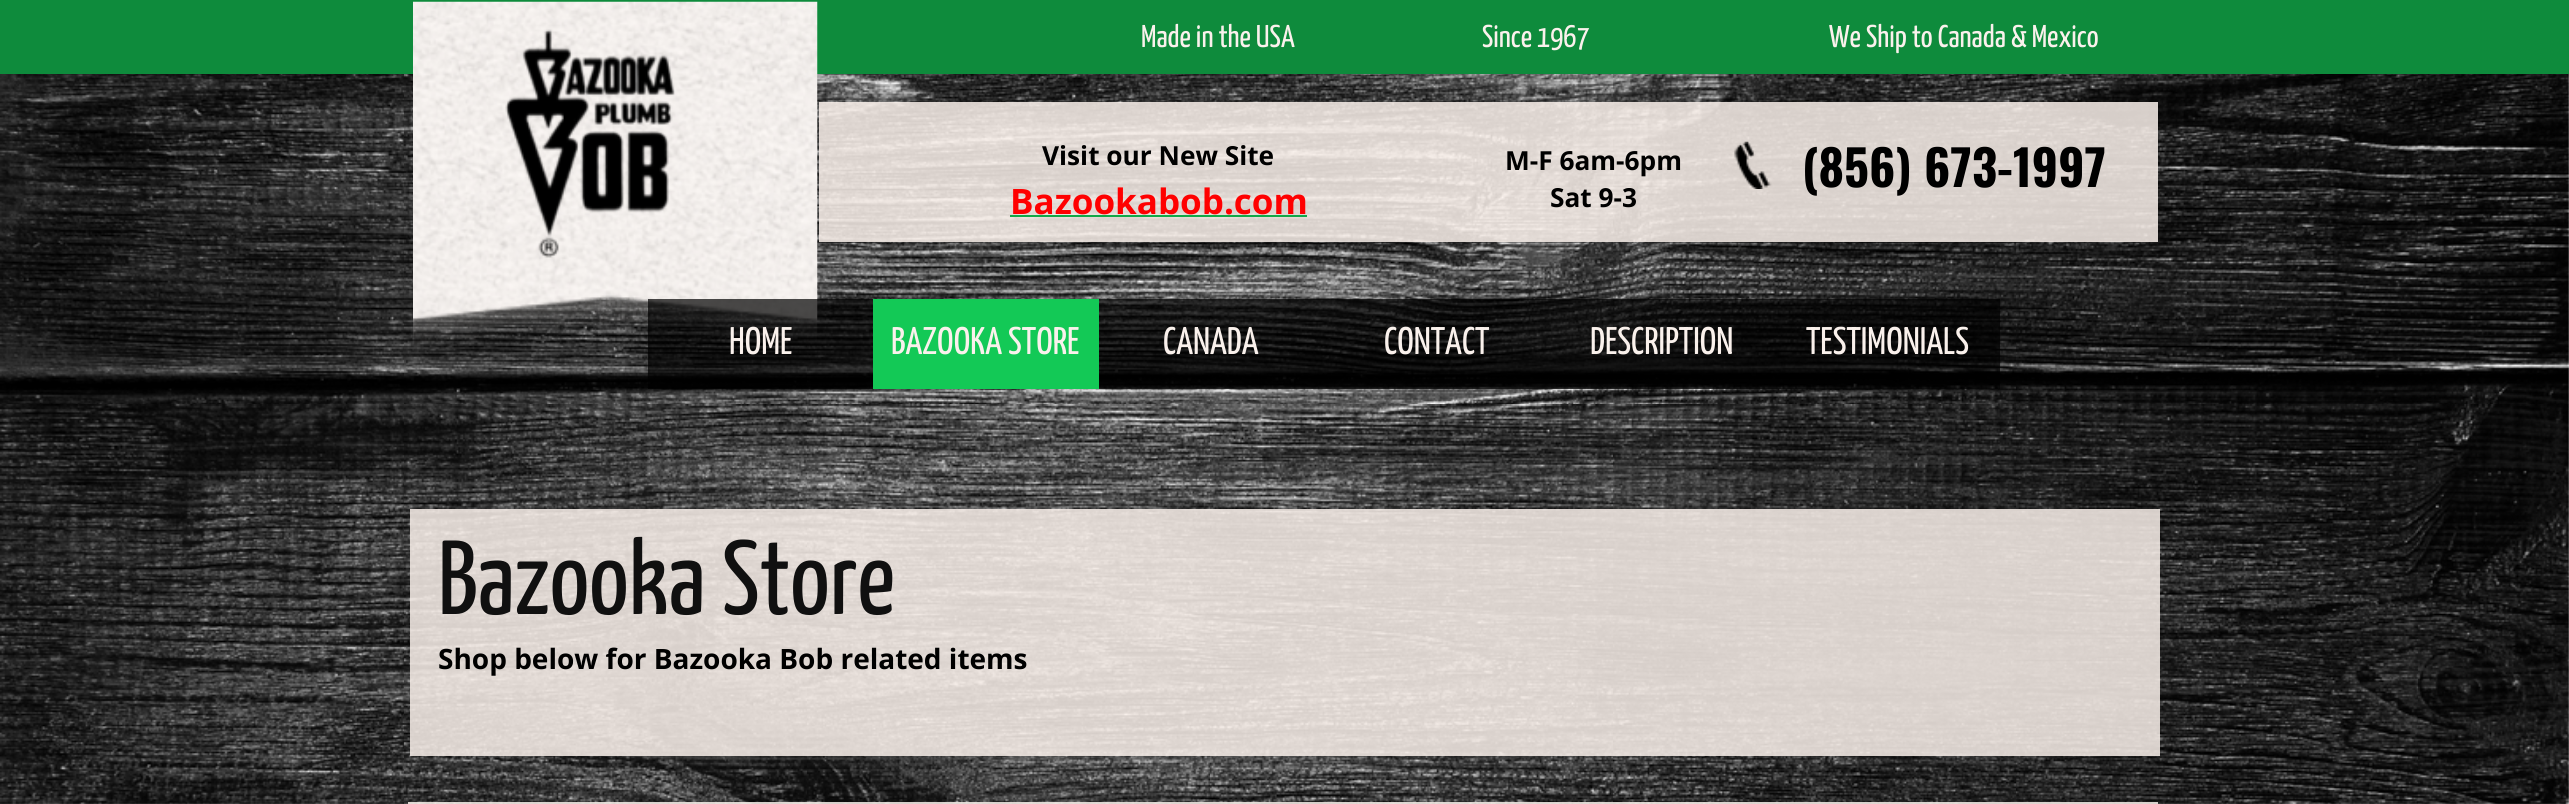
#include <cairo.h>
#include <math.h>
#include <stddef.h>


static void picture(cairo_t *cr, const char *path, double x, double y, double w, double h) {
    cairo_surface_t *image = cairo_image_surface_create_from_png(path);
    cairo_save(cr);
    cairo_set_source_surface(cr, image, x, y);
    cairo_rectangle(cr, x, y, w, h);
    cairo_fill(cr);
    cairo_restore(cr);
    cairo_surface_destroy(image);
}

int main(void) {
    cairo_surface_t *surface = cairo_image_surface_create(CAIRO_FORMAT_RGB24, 2569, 804);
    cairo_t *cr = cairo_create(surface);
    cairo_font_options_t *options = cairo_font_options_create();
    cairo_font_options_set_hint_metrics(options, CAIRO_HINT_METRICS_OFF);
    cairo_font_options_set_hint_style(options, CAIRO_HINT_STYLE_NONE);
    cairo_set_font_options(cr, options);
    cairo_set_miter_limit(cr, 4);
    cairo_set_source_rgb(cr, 1, 1, 1);
    cairo_paint(cr);
    picture(cr, "img1.png", 0, 74, 2569, 730);
    cairo_set_source_rgb(cr, 0.055, 0.545, 0.235);
    cairo_rectangle(cr, 0, 0, 2569, 74);
    cairo_fill(cr);
    picture(cr, "img2.png", 413, 1, 405, 343);
    cairo_select_font_face(cr, "Yanone Kaffeesatz ExtraLight", CAIRO_FONT_SLANT_NORMAL, CAIRO_FONT_WEIGHT_NORMAL);
    cairo_set_font_size(cr, 31.5);
    cairo_set_source_rgb(cr, 0.98, 0.945, 0.922);
    cairo_move_to(cr, 1141, 47);
    cairo_show_text(cr, "Made in the USA");
    cairo_move_to(cr, 1482, 47);
    cairo_show_text(cr, "Since 1967");
    cairo_move_to(cr, 1829, 47);
    cairo_show_text(cr, "We Ship to Canada & Mexico");
    picture(cr, "img3.png", 505, 29, 170, 229);
    cairo_set_source_rgba(cr, 0.98, 0.945, 0.922, 0.85);
    cairo_rectangle(cr, 819, 102, 1339, 140);
    cairo_fill(cr);
    cairo_select_font_face(cr, "Open Sans", CAIRO_FONT_SLANT_NORMAL, CAIRO_FONT_WEIGHT_BOLD);
    cairo_set_font_size(cr, 26.25);
    cairo_set_source_rgb(cr, 0, 0, 0);
    cairo_move_to(cr, 1042, 165);
    cairo_show_text(cr, "Visit our New Site");
    cairo_set_font_size(cr, 35);
    cairo_set_source_rgb(cr, 1, 0, 0);
    cairo_move_to(cr, 1010, 214);
    cairo_show_text(cr, "Bazookabob.com");
    cairo_set_source_rgb(cr, 0.067, 0.659, 0.282);
    cairo_rectangle(cr, 1010, 215, 297, 2);
    cairo_fill(cr);
    cairo_set_font_size(cr, 26.25);
    cairo_set_source_rgb(cr, 0, 0, 0);
    cairo_move_to(cr, 1505, 170);
    cairo_show_text(cr, "M-F 6am-6pm");
    cairo_move_to(cr, 1550, 207);
    cairo_show_text(cr, "Sat 9-3");
    picture(cr, "img4.png", 1734, 141, 38, 48);
    cairo_select_font_face(cr, "Oswald", CAIRO_FONT_SLANT_NORMAL, CAIRO_FONT_WEIGHT_BOLD);
    cairo_set_font_size(cr, 49);
    cairo_move_to(cr, 1802, 187);
    cairo_show_text(cr, "(856) 673-1997");
    cairo_set_source_rgba(cr, 0, 0, 0, 0.7);
    cairo_rectangle(cr, 648, 299, 1352, 90);
    cairo_fill(cr);
    cairo_select_font_face(cr, "Yanone Kaffeesatz ExtraLight", CAIRO_FONT_SLANT_NORMAL, CAIRO_FONT_WEIGHT_NORMAL);
    cairo_set_font_size(cr, 38.5);
    cairo_set_source_rgb(cr, 0.98, 0.945, 0.922);
    cairo_move_to(cr, 729, 354);
    cairo_show_text(cr, "HOME");
    cairo_set_source_rgb(cr, 0.078, 0.788, 0.337);
    cairo_rectangle(cr, 873, 299, 226, 90);
    cairo_fill(cr);
    cairo_set_source_rgb(cr, 0.98, 0.945, 0.922);
    cairo_move_to(cr, 891, 354);
    cairo_show_text(cr, "BAZOOKA STORE");
    cairo_move_to(cr, 1163, 354);
    cairo_show_text(cr, "CANADA");
    cairo_move_to(cr, 1384, 354);
    cairo_show_text(cr, "CONTACT");
    cairo_move_to(cr, 1590, 354);
    cairo_show_text(cr, "DESCRIPTION");
    cairo_move_to(cr, 1806, 354);
    cairo_show_text(cr, "TESTIMONIALS");
    cairo_set_source_rgba(cr, 0.98, 0.945, 0.922, 0.85);
    cairo_rectangle(cr, 410, 509, 1750, 247);
    cairo_fill(cr);
    cairo_set_font_size(cr, 105);
    cairo_set_source_rgb(cr, 0.063, 0.063, 0.063);
    cairo_move_to(cr, 438, 614);
    cairo_show_text(cr, "Bazooka Store");
    cairo_select_font_face(cr, "Open Sans", CAIRO_FONT_SLANT_NORMAL, CAIRO_FONT_WEIGHT_BOLD);
    cairo_set_font_size(cr, 28);
    cairo_set_source_rgb(cr, 0, 0, 0);
    cairo_move_to(cr, 438, 669);
    cairo_show_text(cr, "Shop below for Bazooka Bob related items");
    cairo_set_source_rgba(cr, 0.98, 0.945, 0.922, 0.85);
    cairo_rectangle(cr, 408, 802, 1750, 2);
    cairo_fill(cr);
    cairo_surface_write_to_png(surface, "page.png");
    cairo_font_options_destroy(options);
    cairo_destroy(cr);
    cairo_surface_destroy(surface);
    return 0;
}
